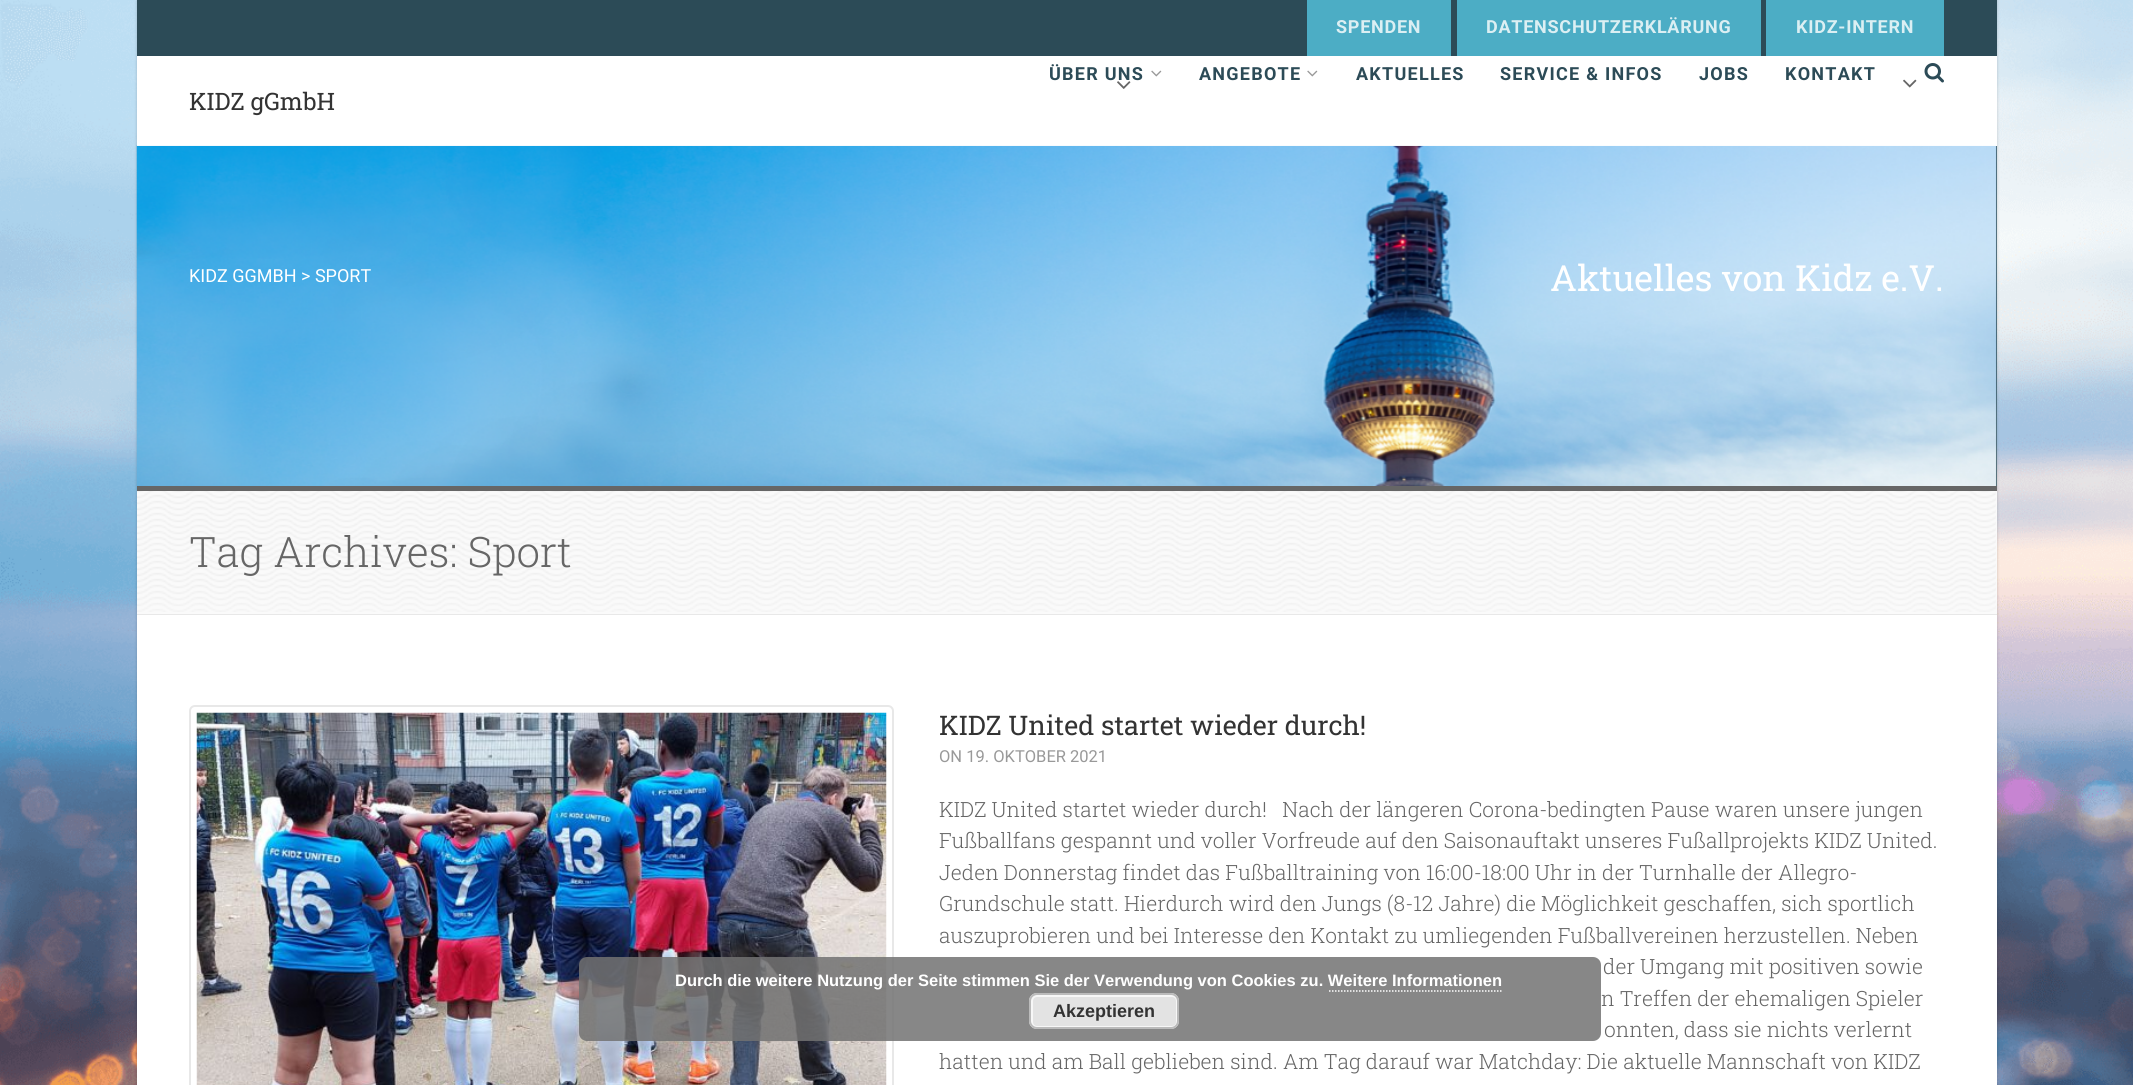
#include <cairo.h>
#include <math.h>
#include <stddef.h>


static void spaced_text(cairo_t *cr, double x, double y, const char *s, double letter, double word) {
    cairo_move_to(cr, x, y);
    while (*s) {
        char ch[5] = {0};
        int n = 0;
        do ch[n++] = *s++; while ((*s & 0xC0) == 0x80);
        cairo_show_text(cr, ch);
        cairo_rel_move_to(cr, letter + word * (*ch == ' '), 0);
    }
}

static void round_rect(cairo_t *cr, double x, double y, double w, double h, double r) {
    cairo_new_sub_path(cr);
    cairo_arc(cr, x + w - r, y + h - r, r, 0, M_PI / 2);
    cairo_arc(cr, x + r, y + h - r, r, M_PI / 2, M_PI);
    cairo_arc(cr, x + r, y + r, r, M_PI, 1.5 * M_PI);
    cairo_arc(cr, x + w - r, y + r, r, 1.5 * M_PI, 2 * M_PI);
    cairo_close_path(cr);
}

static void shadow(cairo_t *cr, double x, double y, double w, double h, double r, double blur, double alpha) {
    cairo_push_group_with_content(cr, CAIRO_CONTENT_ALPHA);
    cairo_set_operator(cr, CAIRO_OPERATOR_SOURCE);
    for (int i = 15; i >= -15 && fmin(w, h) + blur * i / 3 > 0; i -= 2) {
        double e = blur * i / 6;
        cairo_set_source_rgba(cr, 0, 0, 0, alpha * erfc((i - 1) / 8.5) / 2);
        round_rect(cr, x - e, y - e, w + 2 * e, h + 2 * e, fmax(0, fmin(r + e + blur * .6, fmin(w, h) / 2 + e)));
        cairo_fill(cr);
    }
    cairo_pattern_t *soft = cairo_pop_group(cr);
    cairo_mask(cr, soft);
    cairo_pattern_destroy(soft);
}

static void picture(cairo_t *cr, const char *path, double x, double y, double w, double h) {
    cairo_surface_t *image = cairo_image_surface_create_from_png(path);
    cairo_save(cr);
    cairo_set_source_surface(cr, image, x, y);
    cairo_rectangle(cr, x, y, w, h);
    cairo_fill(cr);
    cairo_restore(cr);
    cairo_surface_destroy(image);
}

int main(void) {
    cairo_surface_t *surface = cairo_image_surface_create(CAIRO_FORMAT_RGB24, 2133, 1085);
    cairo_t *cr = cairo_create(surface);
    cairo_font_options_t *options = cairo_font_options_create();
    cairo_font_options_set_hint_metrics(options, CAIRO_HINT_METRICS_OFF);
    cairo_font_options_set_hint_style(options, CAIRO_HINT_STYLE_NONE);
    cairo_set_font_options(cr, options);
    cairo_set_miter_limit(cr, 4);
    cairo_set_source_rgb(cr, 1, 1, 1);
    cairo_paint(cr);
    picture(cr, "img1.png", 0, 0, 2133, 1085);
    cairo_set_source_rgb(cr, 0, 0, 0);
    shadow(cr, 137, 0, 1860, 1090, 0, 1.5, 0.2);
    cairo_set_source_rgb(cr, 1, 1, 1);
    cairo_rectangle(cr, 137, 56, 1860, 90);
    cairo_fill(cr);
    cairo_set_source_rgb(cr, 0.173, 0.294, 0.341);
    cairo_rectangle(cr, 137, 0, 1860, 56);
    cairo_fill(cr);
    cairo_set_source_rgb(cr, 0.298, 0.678, 0.773);
    cairo_rectangle(cr, 1307, 0, 144, 56);
    cairo_fill(cr);
    cairo_select_font_face(cr, "Roboto", CAIRO_FONT_SLANT_NORMAL, CAIRO_FONT_WEIGHT_BOLD);
    cairo_set_font_size(cr, 18);
    cairo_set_source_rgb(cr, 0.859, 0.937, 0.953);
    spaced_text(cr, 1336, 33, "SPENDEN", 0.75, 0);
    cairo_set_source_rgb(cr, 0.298, 0.678, 0.773);
    cairo_rectangle(cr, 1457, 0, 304, 56);
    cairo_fill(cr);
    cairo_set_source_rgb(cr, 0.859, 0.937, 0.953);
    spaced_text(cr, 1486, 33, "DATENSCHUTZERKLÄRUNG", 0.75, 0);
    cairo_set_source_rgb(cr, 0.298, 0.678, 0.773);
    cairo_rectangle(cr, 1766, 0, 178, 56);
    cairo_fill(cr);
    cairo_set_source_rgb(cr, 0.859, 0.937, 0.953);
    spaced_text(cr, 1796, 33, "KIDZ-INTERN", 0.75, 0);
    cairo_set_source_rgb(cr, 0.173, 0.294, 0.341);
    cairo_rectangle(cr, 137, 146, 1860, 340);
    cairo_fill(cr);
    picture(cr, "img6.png", 136, 145, 1861, 346);
    cairo_set_source_rgba(cr, 1, 1, 1, 0.9);
    cairo_rectangle(cr, 137, 145, 1860, 1);
    cairo_fill(cr);
    cairo_set_source_rgb(cr, 0.173, 0.294, 0.341);
    spaced_text(cr, 1049, 80, "ÜBER UNS", 1.25, 0);
    picture(cr, "img2.png", 1151, 70, 11, 7);
    picture(cr, "img3.png", 1117, 81, 14, 8);
    spaced_text(cr, 1199, 80, "ANGEBOTE", 1.25, 0);
    picture(cr, "img2.png", 1307, 70, 11, 7);
    picture(cr, "img4.png", 1903, 79, 14, 9);
    spaced_text(cr, 1356, 80, "AKTUELLES", 1.25, 0);
    spaced_text(cr, 1500, 80, "SERVICE & INFOS", 1.25, 0);
    spaced_text(cr, 1699, 80, "JOBS", 1.25, 0);
    spaced_text(cr, 1785, 80, "KONTAKT", 1.25, 0);
    picture(cr, "img5.png", 1924, 63, 20, 20);
    cairo_select_font_face(cr, "Roboto Slab", CAIRO_FONT_SLANT_NORMAL, CAIRO_FONT_WEIGHT_NORMAL);
    cairo_set_font_size(cr, 24);
    cairo_set_source_rgb(cr, 0.2, 0.2, 0.2);
    cairo_move_to(cr, 189, 110);
    cairo_show_text(cr, "KIDZ gGmbH");
    cairo_set_source_rgb(cr, 0.4, 0.4, 0.4);
    cairo_rectangle(cr, 137, 486, 1860, 5);
    cairo_fill(cr);
    cairo_select_font_face(cr, "Roboto", CAIRO_FONT_SLANT_NORMAL, CAIRO_FONT_WEIGHT_NORMAL);
    cairo_set_font_size(cr, 18);
    cairo_set_source_rgb(cr, 1, 1, 1);
    cairo_move_to(cr, 189, 282);
    cairo_show_text(cr, "KIDZ GGMBH > SPORT");
    cairo_select_font_face(cr, "Roboto Slab", CAIRO_FONT_SLANT_NORMAL, CAIRO_FONT_WEIGHT_NORMAL);
    cairo_set_font_size(cr, 36);
    cairo_move_to(cr, 1550, 291);
    cairo_show_text(cr, "Aktuelles von Kidz e.V.");
    cairo_set_source_rgb(cr, 0.98, 0.98, 0.98);
    cairo_rectangle(cr, 137, 491, 1860, 123);
    cairo_fill(cr);
    picture(cr, "img7.png", 137, 491, 1859, 121);
    cairo_set_source_rgb(cr, 0.91, 0.91, 0.91);
    cairo_rectangle(cr, 137, 614, 1860, 1);
    cairo_fill(cr);
    cairo_select_font_face(cr, "Roboto Slab Light", CAIRO_FONT_SLANT_NORMAL, CAIRO_FONT_WEIGHT_NORMAL);
    cairo_set_font_size(cr, 42);
    cairo_set_source_rgb(cr, 0.4, 0.4, 0.4);
    cairo_move_to(cr, 189, 567);
    cairo_show_text(cr, "Tag Archives: Sport");
    cairo_set_source_rgb(cr, 1, 1, 1);
    cairo_rectangle(cr, 137, 615, 1860, 470);
    cairo_fill(cr);
    round_rect(cr, 190, 706, 703, 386, 5);
    cairo_set_source_rgb(cr, 0.91, 0.91, 0.91);
    cairo_stroke(cr);
    picture(cr, "img8.png", 196, 712, 691, 373);
    cairo_select_font_face(cr, "Roboto Slab", CAIRO_FONT_SLANT_NORMAL, CAIRO_FONT_WEIGHT_NORMAL);
    cairo_set_font_size(cr, 27);
    cairo_set_source_rgb(cr, 0.2, 0.2, 0.2);
    cairo_move_to(cr, 939, 735);
    cairo_show_text(cr, "KIDZ United startet wieder durch!");
    cairo_select_font_face(cr, "Roboto", CAIRO_FONT_SLANT_NORMAL, CAIRO_FONT_WEIGHT_NORMAL);
    cairo_set_font_size(cr, 16.5);
    cairo_set_source_rgb(cr, 0.6, 0.6, 0.6);
    cairo_move_to(cr, 939, 762);
    cairo_show_text(cr, "ON 19. OKTOBER 2021");
    cairo_select_font_face(cr, "Roboto Slab Light", CAIRO_FONT_SLANT_NORMAL, CAIRO_FONT_WEIGHT_NORMAL);
    cairo_set_font_size(cr, 21);
    cairo_set_source_rgb(cr, 0.4, 0.4, 0.4);
    cairo_move_to(cr, 939, 817);
    cairo_show_text(cr, "KIDZ United startet wieder durch!   Nach der längeren Corona-bedingten Pause waren unsere jungen");
    cairo_move_to(cr, 939, 848);
    cairo_show_text(cr, "Fußballfans gespannt und voller Vorfreude auf den Saisonauftakt unseres Fußallprojekts KIDZ United.");
    cairo_move_to(cr, 939, 880);
    cairo_show_text(cr, "Jeden Donnerstag findet das Fußballtraining von 16:00-18:00 Uhr in der Turnhalle der Allegro-");
    cairo_move_to(cr, 939, 911);
    cairo_show_text(cr, "Grundschule statt. Hierdurch wird den Jungs (8-12 Jahre) die Möglichkeit geschaffen, sich sportlich");
    cairo_move_to(cr, 939, 943);
    cairo_show_text(cr, "auszuprobieren und bei Interesse den Kontakt zu umliegenden Fußballvereinen herzustellen. Neben");
    cairo_move_to(cr, 1603, 974);
    cairo_show_text(cr, "der Umgang mit positiven sowie");
    cairo_move_to(cr, 1601, 1006);
    cairo_show_text(cr, "n Treffen der ehemaligen Spieler");
    cairo_move_to(cr, 1604, 1037);
    cairo_show_text(cr, "onnten, dass sie nichts verlernt");
    cairo_move_to(cr, 939, 1069);
    cairo_show_text(cr, "hatten und am Ball geblieben sind. Am Tag darauf war Matchday: Die aktuelle Mannschaft von KIDZ");
    cairo_set_source_rgba(cr, 0.447, 0.447, 0.447, 0.85);
    round_rect(cr, 579, 957, 1022, 84, 8);
    cairo_fill(cr);
    cairo_select_font_face(cr, "Liberation Sans", CAIRO_FONT_SLANT_NORMAL, CAIRO_FONT_WEIGHT_BOLD);
    cairo_set_font_size(cr, 16.5);
    cairo_set_source_rgb(cr, 1, 1, 1);
    cairo_move_to(cr, 675, 986);
    cairo_show_text(cr, "Durch die weitere Nutzung der Seite stimmen Sie der Verwendung von Cookies zu. Weitere Informationen");
    cairo_new_path(cr);
    cairo_move_to(cr, 1329, 991);
    cairo_line_to(cr, 1503, 991);
    cairo_set_line_width(cr, 1.5);
    cairo_set_dash(cr, (double[]){1.5, 1.5}, 2, 0);
    cairo_stroke(cr);
    cairo_set_source_rgb(cr, 0.89, 0.89, 0.89);
    round_rect(cr, 1029, 993, 150, 36, 8);
    cairo_fill(cr);
    round_rect(cr, 1032, 996, 145, 31, 5);
    cairo_set_source_rgb(cr, 0.965, 0.965, 0.965);
    cairo_set_line_width(cr, 2);
    cairo_set_dash(cr, NULL, 0, 0);
    cairo_stroke(cr);
    round_rect(cr, 1030, 994, 148, 34, 7);
    cairo_set_source_rgb(cr, 0.733, 0.733, 0.733);
    cairo_stroke(cr);
    cairo_set_font_size(cr, 18);
    cairo_set_source_rgb(cr, 0.2, 0.2, 0.2);
    cairo_move_to(cr, 1053, 1017);
    cairo_show_text(cr, "Akzeptieren");
    cairo_surface_write_to_png(surface, "page.png");
    cairo_font_options_destroy(options);
    cairo_destroy(cr);
    cairo_surface_destroy(surface);
    return 0;
}
